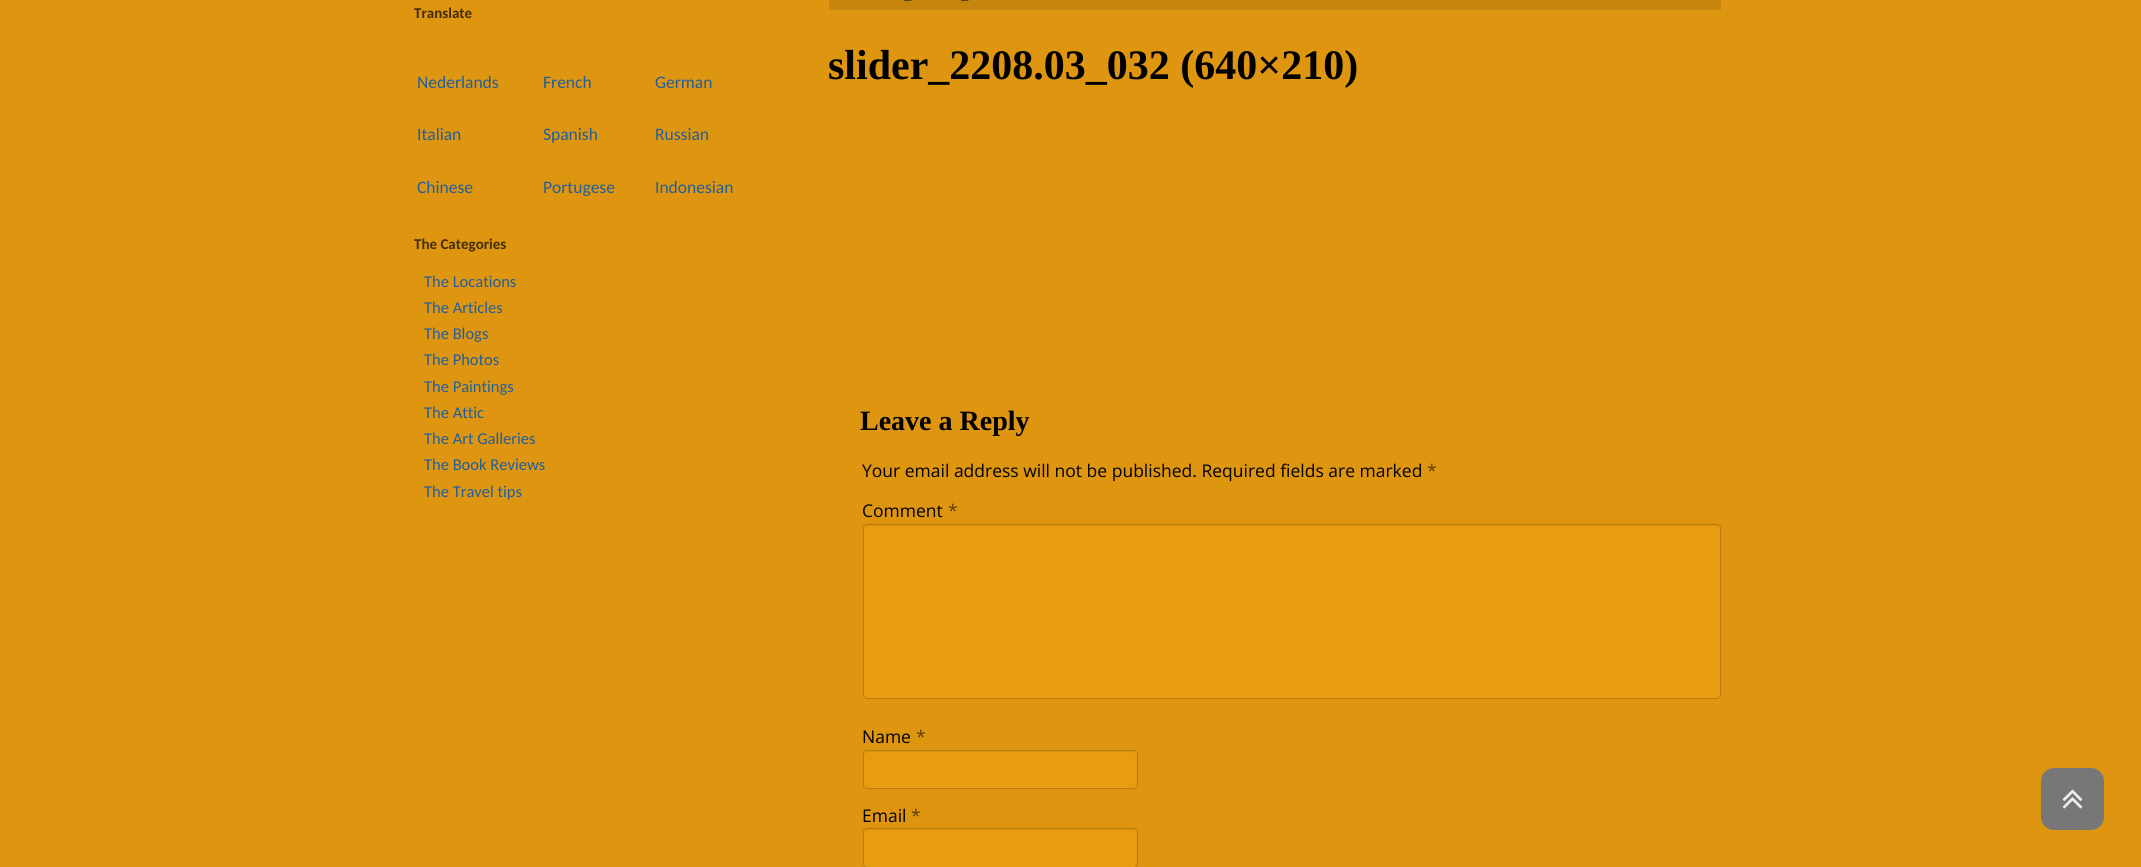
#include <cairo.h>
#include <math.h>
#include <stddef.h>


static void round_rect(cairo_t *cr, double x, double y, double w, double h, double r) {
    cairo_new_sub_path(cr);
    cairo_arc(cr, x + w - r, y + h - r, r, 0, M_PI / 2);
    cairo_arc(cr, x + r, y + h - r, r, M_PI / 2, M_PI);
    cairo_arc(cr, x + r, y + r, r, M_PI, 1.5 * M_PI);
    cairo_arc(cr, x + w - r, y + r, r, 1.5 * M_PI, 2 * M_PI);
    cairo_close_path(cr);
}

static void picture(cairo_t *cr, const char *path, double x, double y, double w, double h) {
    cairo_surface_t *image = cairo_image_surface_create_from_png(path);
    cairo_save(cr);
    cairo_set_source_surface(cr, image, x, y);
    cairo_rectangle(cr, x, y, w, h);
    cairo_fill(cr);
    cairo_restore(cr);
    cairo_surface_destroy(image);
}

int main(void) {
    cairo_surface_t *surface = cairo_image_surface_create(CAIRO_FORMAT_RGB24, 2141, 867);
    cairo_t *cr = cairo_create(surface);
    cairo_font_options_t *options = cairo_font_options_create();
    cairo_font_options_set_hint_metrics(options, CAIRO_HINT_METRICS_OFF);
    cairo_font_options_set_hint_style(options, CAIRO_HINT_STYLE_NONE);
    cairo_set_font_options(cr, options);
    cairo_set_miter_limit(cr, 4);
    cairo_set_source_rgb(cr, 0.871, 0.588, 0.063);
    cairo_paint(cr);
    cairo_select_font_face(cr, "Carlito", CAIRO_FONT_SLANT_NORMAL, CAIRO_FONT_WEIGHT_BOLD);
    cairo_set_font_size(cr, 15);
    cairo_set_source_rgb(cr, 0.263, 0.176, 0.02);
    cairo_move_to(cr, 414, 18);
    cairo_show_text(cr, "Translate");
    cairo_select_font_face(cr, "Carlito", CAIRO_FONT_SLANT_NORMAL, CAIRO_FONT_WEIGHT_NORMAL);
    cairo_set_font_size(cr, 17.5);
    cairo_set_source_rgb(cr, 0.133, 0.369, 0.608);
    cairo_move_to(cr, 417, 88);
    cairo_show_text(cr, "Nederlands");
    cairo_move_to(cr, 543, 88);
    cairo_show_text(cr, "French");
    cairo_move_to(cr, 655, 88);
    cairo_show_text(cr, "German");
    cairo_move_to(cr, 417, 140);
    cairo_show_text(cr, "Italian");
    cairo_move_to(cr, 543, 140);
    cairo_show_text(cr, "Spanish");
    cairo_move_to(cr, 655, 140);
    cairo_show_text(cr, "Russian");
    cairo_move_to(cr, 417, 193);
    cairo_show_text(cr, "Chinese");
    cairo_move_to(cr, 543, 193);
    cairo_show_text(cr, "Portugese");
    cairo_move_to(cr, 655, 193);
    cairo_show_text(cr, "Indonesian");
    cairo_select_font_face(cr, "Carlito", CAIRO_FONT_SLANT_NORMAL, CAIRO_FONT_WEIGHT_BOLD);
    cairo_set_font_size(cr, 15);
    cairo_set_source_rgb(cr, 0.263, 0.176, 0.02);
    cairo_move_to(cr, 414, 249);
    cairo_show_text(cr, "The Categories");
    cairo_select_font_face(cr, "Carlito", CAIRO_FONT_SLANT_NORMAL, CAIRO_FONT_WEIGHT_NORMAL);
    cairo_set_font_size(cr, 16.5);
    cairo_set_source_rgb(cr, 0.133, 0.369, 0.608);
    cairo_move_to(cr, 424, 287);
    cairo_show_text(cr, "The Locations");
    cairo_move_to(cr, 424, 313);
    cairo_show_text(cr, "The Articles");
    cairo_move_to(cr, 424, 339);
    cairo_show_text(cr, "The Blogs");
    cairo_move_to(cr, 424, 365);
    cairo_show_text(cr, "The Photos");
    cairo_move_to(cr, 424, 392);
    cairo_show_text(cr, "The Paintings");
    cairo_move_to(cr, 424, 418);
    cairo_show_text(cr, "The Attic");
    cairo_move_to(cr, 424, 444);
    cairo_show_text(cr, "The Art Galleries");
    cairo_move_to(cr, 424, 470);
    cairo_show_text(cr, "The Book Reviews");
    cairo_move_to(cr, 424, 497);
    cairo_show_text(cr, "The Travel tips");
    cairo_set_source_rgb(cr, 0.776, 0.525, 0.055);
    cairo_rectangle(cr, 829, 0, 892, 10);
    cairo_fill(cr);
    cairo_set_font_size(cr, 15);
    cairo_set_source_rgb(cr, 0.31, 0.212, 0.024);
    cairo_move_to(cr, 904, -1);
    cairo_show_text(cr, "_");
    cairo_move_to(cr, 961, -1);
    cairo_show_text(cr, "_");
    cairo_select_font_face(cr, "Liberation Serif", CAIRO_FONT_SLANT_NORMAL, CAIRO_FONT_WEIGHT_BOLD);
    cairo_set_font_size(cr, 42);
    cairo_set_source_rgb(cr, 0, 0, 0);
    cairo_move_to(cr, 828, 79);
    cairo_show_text(cr, "slider_2208.03_032 (640×210)");
    cairo_set_font_size(cr, 28);
    cairo_move_to(cr, 860, 430);
    cairo_show_text(cr, "Leave a Reply");
    cairo_select_font_face(cr, "Open Sans", CAIRO_FONT_SLANT_NORMAL, CAIRO_FONT_WEIGHT_NORMAL);
    cairo_set_font_size(cr, 17.5);
    cairo_move_to(cr, 862, 477);
    cairo_show_text(cr, "Your email address will not be published. Required fields are marked");
    cairo_set_source_rgb(cr, 0.349, 0.235, 0.024);
    cairo_move_to(cr, 1427, 477);
    cairo_show_text(cr, "*");
    cairo_set_source_rgb(cr, 0, 0, 0);
    cairo_move_to(cr, 862, 517);
    cairo_show_text(cr, "Comment");
    cairo_set_source_rgb(cr, 0.349, 0.235, 0.024);
    cairo_move_to(cr, 948, 517);
    cairo_show_text(cr, "*");
    cairo_set_source_rgb(cr, 0.91, 0.612, 0.067);
    round_rect(cr, 863, 524, 858, 175, 4);
    cairo_fill(cr);
    cairo_set_source_rgb(cr, 0.843, 0.565, 0.063);
    cairo_new_path(cr);
    cairo_move_to(cr, 866, 526);
    cairo_line_to(cr, 1718, 526);
    cairo_curve_to(cr, 1719, 526, 1720, 527, 1720, 529);
    cairo_line_to(cr, 1720, 528);
    cairo_curve_to(cr, 1720, 526, 1719, 525, 1718, 525);
    cairo_line_to(cr, 866, 525);
    cairo_curve_to(cr, 865, 525, 864, 526, 864, 528);
    cairo_line_to(cr, 864, 529);
    cairo_curve_to(cr, 864, 527, 865, 526, 866, 526);
    cairo_close_path(cr);
    cairo_fill(cr);
    round_rect(cr, 863.5, 524.5, 857, 174, 3.5);
    cairo_set_source_rgb(cr, 0.722, 0.486, 0.051);
    cairo_set_line_width(cr, 1);
    cairo_stroke(cr);
    cairo_set_source_rgb(cr, 0, 0, 0);
    cairo_move_to(cr, 862, 743);
    cairo_show_text(cr, "Name");
    cairo_set_source_rgb(cr, 0.349, 0.235, 0.024);
    cairo_move_to(cr, 916, 743);
    cairo_show_text(cr, "*");
    cairo_set_source_rgb(cr, 0.91, 0.612, 0.067);
    round_rect(cr, 863, 750, 275, 39, 4);
    cairo_fill(cr);
    cairo_set_source_rgb(cr, 0.843, 0.565, 0.063);
    cairo_new_path(cr);
    cairo_move_to(cr, 866, 752);
    cairo_line_to(cr, 1134, 752);
    cairo_curve_to(cr, 1135, 752, 1136, 754, 1136, 755);
    cairo_line_to(cr, 1136, 754);
    cairo_curve_to(cr, 1136, 752, 1135, 751, 1134, 751);
    cairo_line_to(cr, 866, 751);
    cairo_curve_to(cr, 865, 751, 864, 752, 864, 754);
    cairo_line_to(cr, 864, 755);
    cairo_curve_to(cr, 864, 754, 865, 752, 866, 752);
    cairo_close_path(cr);
    cairo_fill(cr);
    round_rect(cr, 863.5, 750.5, 274, 38, 3.5);
    cairo_set_source_rgb(cr, 0.722, 0.486, 0.051);
    cairo_stroke(cr);
    cairo_set_source_rgb(cr, 0, 0, 0);
    cairo_move_to(cr, 862, 822);
    cairo_show_text(cr, "Email");
    cairo_set_source_rgb(cr, 0.349, 0.235, 0.024);
    cairo_move_to(cr, 911, 822);
    cairo_show_text(cr, "*");
    cairo_set_source_rgb(cr, 0.91, 0.612, 0.067);
    round_rect(cr, 863, 828, 275, 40, 4);
    cairo_fill(cr);
    cairo_set_source_rgb(cr, 0.843, 0.565, 0.063);
    cairo_new_path(cr);
    cairo_move_to(cr, 866, 830);
    cairo_line_to(cr, 1134, 830);
    cairo_curve_to(cr, 1135, 830, 1136, 831, 1136, 832);
    cairo_curve_to(cr, 1136, 830, 1135, 829, 1134, 829);
    cairo_line_to(cr, 866, 829);
    cairo_curve_to(cr, 865, 829, 864, 830, 864, 832);
    cairo_curve_to(cr, 864, 831, 865, 830, 866, 830);
    cairo_close_path(cr);
    cairo_fill(cr);
    round_rect(cr, 863.5, 828.5, 274, 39, 3.5);
    cairo_set_source_rgb(cr, 0.722, 0.486, 0.051);
    cairo_stroke(cr);
    cairo_set_source_rgb(cr, 0.467, 0.467, 0.467);
    round_rect(cr, 2041, 768, 63, 62, 13);
    cairo_fill(cr);
    picture(cr, "img1.png", 2062, 789, 21, 20);
    cairo_surface_write_to_png(surface, "page.png");
    cairo_font_options_destroy(options);
    cairo_destroy(cr);
    cairo_surface_destroy(surface);
    return 0;
}
